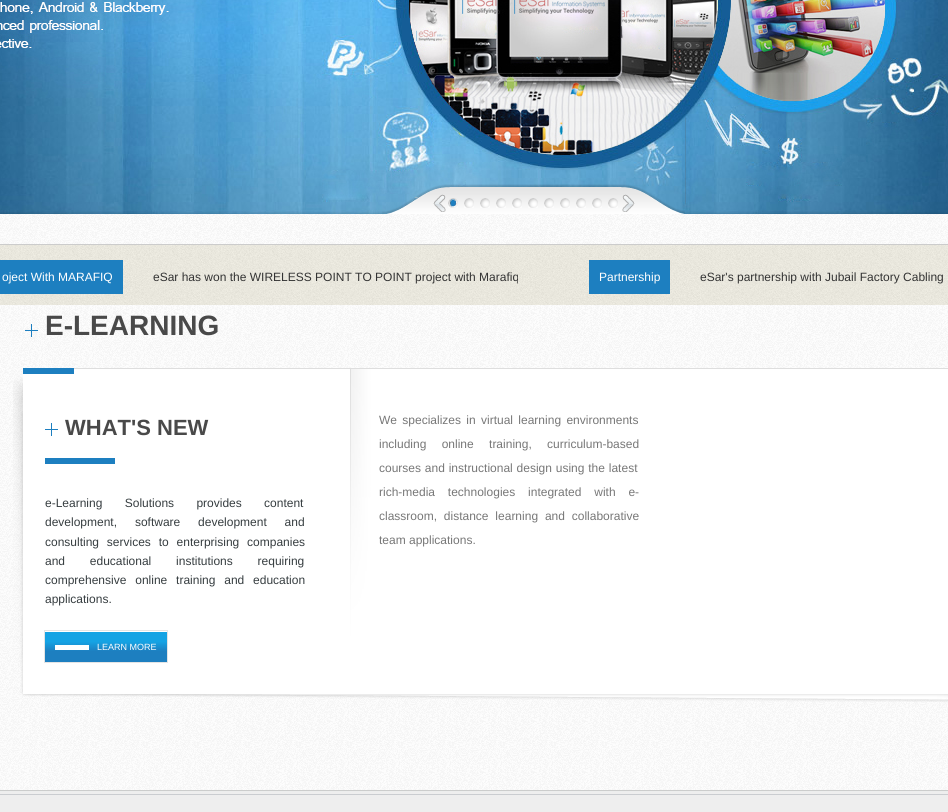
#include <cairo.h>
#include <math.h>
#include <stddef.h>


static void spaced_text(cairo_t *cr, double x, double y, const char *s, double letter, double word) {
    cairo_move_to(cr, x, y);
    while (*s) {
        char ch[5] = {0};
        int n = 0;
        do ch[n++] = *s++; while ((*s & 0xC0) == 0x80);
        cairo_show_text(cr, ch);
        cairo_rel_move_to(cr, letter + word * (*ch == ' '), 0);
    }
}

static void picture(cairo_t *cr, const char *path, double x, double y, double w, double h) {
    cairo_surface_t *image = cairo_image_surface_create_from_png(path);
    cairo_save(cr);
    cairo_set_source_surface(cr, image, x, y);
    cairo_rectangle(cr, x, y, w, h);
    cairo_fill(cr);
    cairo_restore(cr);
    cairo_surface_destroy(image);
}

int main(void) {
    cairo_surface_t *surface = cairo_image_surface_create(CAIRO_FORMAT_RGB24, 948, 812);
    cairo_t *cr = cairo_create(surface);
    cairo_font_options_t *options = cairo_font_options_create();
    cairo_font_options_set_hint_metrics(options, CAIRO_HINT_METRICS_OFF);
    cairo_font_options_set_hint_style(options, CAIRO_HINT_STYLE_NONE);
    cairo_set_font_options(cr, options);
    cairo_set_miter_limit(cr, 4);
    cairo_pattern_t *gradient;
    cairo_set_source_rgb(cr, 1, 1, 1);
    cairo_paint(cr);
    picture(cr, "img1.png", 0, 214, 948, 576);
    picture(cr, "img2.png", 0, 0, 948, 214);
    picture(cr, "img3.png", 382, 184, 303, 30);
    picture(cr, "img4.png", 433, 194, 13, 18);
    picture(cr, "img5.png", 448, 198, 10, 10);
    picture(cr, "img6.png", 464, 198, 10, 10);
    picture(cr, "img6.png", 480, 198, 10, 10);
    picture(cr, "img6.png", 496, 198, 10, 10);
    picture(cr, "img6.png", 512, 198, 10, 10);
    picture(cr, "img6.png", 528, 198, 10, 10);
    picture(cr, "img6.png", 544, 198, 10, 10);
    picture(cr, "img6.png", 560, 198, 10, 10);
    picture(cr, "img6.png", 576, 198, 10, 10);
    picture(cr, "img6.png", 592, 198, 10, 10);
    picture(cr, "img6.png", 608, 198, 10, 10);
    picture(cr, "img7.png", 622, 194, 13, 18);
    picture(cr, "img8.png", 0, 245, 948, 60);
    cairo_set_source_rgb(cr, 0.8, 0.8, 0.8);
    cairo_rectangle(cr, 0, 244, 948, 1);
    cairo_fill(cr);
    cairo_set_source_rgb(cr, 0.114, 0.498, 0.753);
    cairo_rectangle(cr, 0, 260, 123, 34);
    cairo_fill(cr);
    cairo_select_font_face(cr, "Liberation Sans", CAIRO_FONT_SLANT_NORMAL, CAIRO_FONT_WEIGHT_NORMAL);
    cairo_set_font_size(cr, 12);
    cairo_set_source_rgb(cr, 1, 1, 1);
    cairo_move_to(cr, 2, 281);
    cairo_show_text(cr, "oject With MARAFIQ");
    cairo_set_source_rgb(cr, 0.2, 0.2, 0.2);
    cairo_move_to(cr, 153, 281);
    cairo_show_text(cr, "eSar has won the WIRELESS POINT TO POINT project with Marafiq");
    cairo_set_source_rgb(cr, 0.114, 0.498, 0.753);
    cairo_rectangle(cr, 589, 260, 81, 34);
    cairo_fill(cr);
    cairo_set_source_rgb(cr, 1, 1, 1);
    cairo_move_to(cr, 599, 281);
    cairo_show_text(cr, "Partnership");
    cairo_set_source_rgb(cr, 0.2, 0.2, 0.2);
    cairo_move_to(cr, 700, 281);
    cairo_show_text(cr, "eSar's partnership with Jubail Factory Cabling");
    picture(cr, "img9.png", 25, 324, 13, 13);
    cairo_select_font_face(cr, "Liberation Sans", CAIRO_FONT_SLANT_NORMAL, CAIRO_FONT_WEIGHT_BOLD);
    cairo_set_font_size(cr, 28);
    cairo_set_source_rgb(cr, 0.286, 0.286, 0.286);
    cairo_move_to(cr, 45, 335);
    cairo_show_text(cr, "E-LEARNING");
    picture(cr, "img10.png", 13, 368, 935, 334);
    cairo_set_source_rgb(cr, 0.114, 0.498, 0.753);
    cairo_rectangle(cr, 23, 368, 51, 6);
    cairo_fill(cr);
    picture(cr, "img11.png", 45, 423, 13, 13);
    cairo_set_font_size(cr, 22);
    cairo_set_source_rgb(cr, 0.286, 0.286, 0.286);
    cairo_move_to(cr, 65, 435);
    cairo_show_text(cr, "WHAT'S NEW");
    cairo_set_source_rgb(cr, 0.114, 0.498, 0.753);
    cairo_rectangle(cr, 45, 458, 70, 6);
    cairo_fill(cr);
    cairo_select_font_face(cr, "Liberation Sans", CAIRO_FONT_SLANT_NORMAL, CAIRO_FONT_WEIGHT_NORMAL);
    cairo_set_font_size(cr, 12);
    cairo_set_source_rgb(cr, 0.212, 0.239, 0.251);
    spaced_text(cr, 45, 507, "e-Learning Solutions provides content", 0, 19);
    spaced_text(cr, 45, 526, "development, software development and", 0, 14.5);
    spaced_text(cr, 45, 546, "consulting services to enterprising companies", 0, 4.5);
    spaced_text(cr, 45, 565, "and educational institutions requiring", 0, 21.5);
    spaced_text(cr, 45, 584, "comprehensive online training and education", 0, 5.5);
    cairo_move_to(cr, 45, 603);
    cairo_show_text(cr, "applications.");
    cairo_rectangle(cr, 44.5, 630.5, 123, 32);
    cairo_set_source_rgb(cr, 0.894, 0.894, 0.894);
    cairo_set_line_width(cr, 1);
    cairo_stroke(cr);
    gradient = cairo_pattern_create_linear(45, 662, 45, 632);
    cairo_pattern_add_color_stop_rgba(gradient, 0.36, 0.114, 0.498, 0.753, 1);
    cairo_pattern_add_color_stop_rgba(gradient, 0.68, 0.082, 0.639, 0.894, 1);
    cairo_set_source(cr, gradient);
    cairo_pattern_destroy(gradient);
    cairo_rectangle(cr, 45, 632, 122, 30);
    cairo_fill(cr);
    cairo_set_font_size(cr, 9);
    cairo_set_source_rgb(cr, 1, 1, 1);
    cairo_move_to(cr, 97, 650);
    cairo_show_text(cr, "LEARN MORE");
    cairo_rectangle(cr, 55, 645, 34, 5);
    cairo_fill(cr);
    cairo_set_font_size(cr, 12);
    cairo_set_source_rgb(cr, 0.467, 0.467, 0.467);
    spaced_text(cr, 379, 424, "We specializes in virtual learning environments", 0, 2);
    spaced_text(cr, 379, 448, "including online training, curriculum-based", 0, 12);
    spaced_text(cr, 379, 472, "courses and instructional design using the latest", 0, 0.5);
    spaced_text(cr, 379, 496, "rich-media technologies integrated with e-", 0, 9.5);
    spaced_text(cr, 379, 520, "classroom, distance learning and collaborative", 0, 3.5);
    cairo_move_to(cr, 379, 544);
    cairo_show_text(cr, "team applications.");
    picture(cr, "img12.png", 0, 790, 948, 22);
    cairo_surface_write_to_png(surface, "page.png");
    cairo_font_options_destroy(options);
    cairo_destroy(cr);
    cairo_surface_destroy(surface);
    return 0;
}
